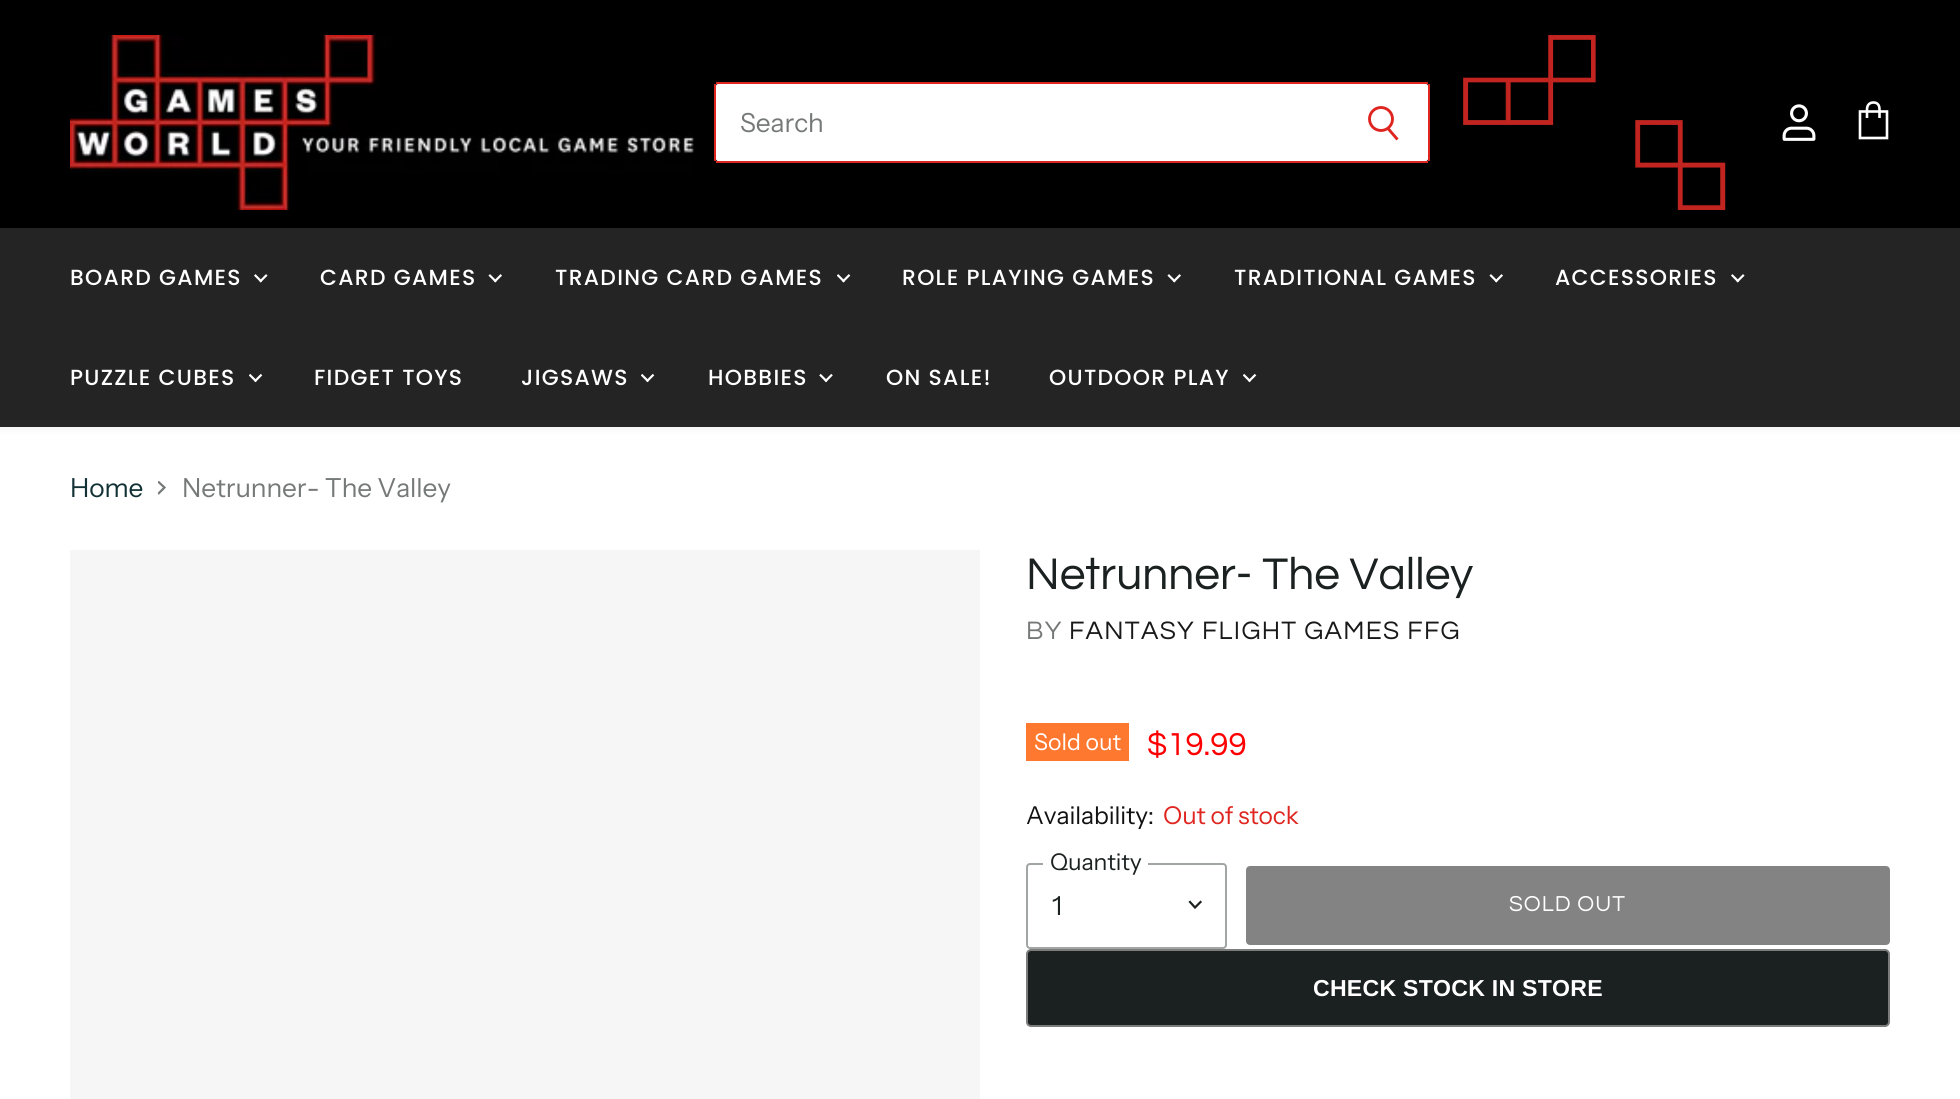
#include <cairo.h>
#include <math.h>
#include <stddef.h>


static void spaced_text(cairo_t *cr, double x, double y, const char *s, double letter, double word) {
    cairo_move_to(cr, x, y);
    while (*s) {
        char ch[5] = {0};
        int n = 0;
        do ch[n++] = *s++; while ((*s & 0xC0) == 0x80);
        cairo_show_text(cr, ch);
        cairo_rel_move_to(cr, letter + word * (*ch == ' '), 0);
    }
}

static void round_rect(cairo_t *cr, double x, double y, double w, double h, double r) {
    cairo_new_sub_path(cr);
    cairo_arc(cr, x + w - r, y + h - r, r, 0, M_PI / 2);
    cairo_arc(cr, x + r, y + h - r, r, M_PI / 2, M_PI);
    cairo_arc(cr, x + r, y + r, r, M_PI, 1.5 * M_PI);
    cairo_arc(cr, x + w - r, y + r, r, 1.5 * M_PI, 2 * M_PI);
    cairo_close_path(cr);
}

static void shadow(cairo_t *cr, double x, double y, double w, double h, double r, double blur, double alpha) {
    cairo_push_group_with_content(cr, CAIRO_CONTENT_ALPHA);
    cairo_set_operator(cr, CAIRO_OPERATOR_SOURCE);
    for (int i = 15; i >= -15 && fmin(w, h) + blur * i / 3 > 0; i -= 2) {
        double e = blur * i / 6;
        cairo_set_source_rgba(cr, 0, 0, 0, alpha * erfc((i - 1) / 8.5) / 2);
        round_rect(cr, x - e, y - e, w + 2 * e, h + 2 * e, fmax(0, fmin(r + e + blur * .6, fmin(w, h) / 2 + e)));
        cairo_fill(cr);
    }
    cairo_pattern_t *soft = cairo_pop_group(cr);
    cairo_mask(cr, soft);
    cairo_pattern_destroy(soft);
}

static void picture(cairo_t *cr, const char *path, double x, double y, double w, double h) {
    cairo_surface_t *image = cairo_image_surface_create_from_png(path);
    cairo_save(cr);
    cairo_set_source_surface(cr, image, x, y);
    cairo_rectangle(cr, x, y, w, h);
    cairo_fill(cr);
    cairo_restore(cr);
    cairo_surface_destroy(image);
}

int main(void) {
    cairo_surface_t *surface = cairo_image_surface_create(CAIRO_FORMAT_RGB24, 1960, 1099);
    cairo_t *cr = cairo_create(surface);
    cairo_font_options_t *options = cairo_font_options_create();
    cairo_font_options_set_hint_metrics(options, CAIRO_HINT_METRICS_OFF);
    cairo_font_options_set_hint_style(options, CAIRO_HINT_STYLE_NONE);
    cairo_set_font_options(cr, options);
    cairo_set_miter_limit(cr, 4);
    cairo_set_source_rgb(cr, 1, 1, 1);
    cairo_paint(cr);
    cairo_set_source_rgb(cr, 0.729, 0.753, 0.745);
    shadow(cr, 0, 2, 1960, 427, 0, 3.5, 0.25);
    cairo_set_source_rgb(cr, 0, 0, 0);
    cairo_rectangle(cr, 0, 0, 1960, 228);
    cairo_fill(cr);
    picture(cr, "img1.png", 70, 35, 624, 175);
    cairo_set_source_rgb(cr, 1, 1, 1);
    cairo_new_path(cr);
    cairo_move_to(cr, 1337, 84);
    cairo_line_to(cr, 1426, 84);
    cairo_curve_to(cr, 1427, 84, 1428, 85, 1428, 86);
    cairo_line_to(cr, 1428, 159);
    cairo_curve_to(cr, 1428, 160, 1427, 161, 1426, 161);
    cairo_line_to(cr, 1337, 161);
    cairo_close_path(cr);
    cairo_fill(cr);
    cairo_set_source_rgb(cr, 0.875, 0.145, 0.125);
    cairo_rectangle(cr, 716, 82, 712, 2);
    cairo_fill(cr);
    cairo_rectangle(cr, 1428, 84, 2, 77);
    cairo_fill(cr);
    cairo_rectangle(cr, 716, 161, 712, 2);
    cairo_fill(cr);
    cairo_new_path(cr);
    cairo_move_to(cr, 1397.5, 139.5);
    cairo_line_to(cr, 1388, 128.5);
    cairo_set_line_width(cr, 2.9);
    cairo_stroke(cr);
    cairo_arc(cr, 1381, 119, 11.5, 0, 2 * M_PI);
    cairo_stroke(cr);
    cairo_set_source_rgb(cr, 1, 1, 1);
    cairo_new_path(cr);
    cairo_move_to(cr, 718, 84);
    cairo_line_to(cr, 1337, 84);
    cairo_line_to(cr, 1337, 161);
    cairo_line_to(cr, 718, 161);
    cairo_curve_to(cr, 717, 161, 716, 160, 716, 159);
    cairo_line_to(cr, 716, 86);
    cairo_curve_to(cr, 716, 85, 717, 84, 718, 84);
    cairo_close_path(cr);
    cairo_fill(cr);
    cairo_set_source_rgb(cr, 0.875, 0.145, 0.125);
    cairo_rectangle(cr, 714, 84, 2, 77);
    cairo_fill(cr);
    cairo_select_font_face(cr, "Instrument Sans", CAIRO_FONT_SLANT_NORMAL, CAIRO_FONT_WEIGHT_NORMAL);
    cairo_set_font_size(cr, 26.25);
    cairo_set_source_rgb(cr, 0.459, 0.475, 0.467);
    spaced_text(cr, 740, 132, "Search", -0.1, 0);
    picture(cr, "img2.png", 1463, 35, 263, 175);
    picture(cr, "img3.png", 1782, 104, 34, 37);
    cairo_new_path(cr);
    cairo_move_to(cr, 1860, 111.5);
    cairo_line_to(cr, 1887, 111.5);
    cairo_line_to(cr, 1887, 138);
    cairo_line_to(cr, 1860, 138);
    cairo_close_path(cr);
    cairo_move_to(cr, 1879.5, 118);
    cairo_line_to(cr, 1879.5, 109.5);
    cairo_curve_to(cr, 1879.5, 104.5, 1877, 102.5, 1873.5, 102.5);
    cairo_curve_to(cr, 1870, 102.5, 1867, 104.5, 1867, 109.5);
    cairo_line_to(cr, 1867, 118);
    cairo_set_source_rgb(cr, 1, 1, 1);
    cairo_set_line_width(cr, 2.6);
    cairo_stroke(cr);
    cairo_set_source_rgb(cr, 0.141, 0.141, 0.141);
    cairo_rectangle(cr, 0, 228, 1960, 199);
    cairo_fill(cr);
    cairo_select_font_face(cr, "Poppins Medium", CAIRO_FONT_SLANT_NORMAL, CAIRO_FONT_WEIGHT_NORMAL);
    cairo_set_font_size(cr, 21.9);
    cairo_set_source_rgb(cr, 1, 1, 1);
    spaced_text(cr, 70, 285, "BOARD GAMES", 1.3, 0);
    picture(cr, "img4.png", 254, 274, 14, 9);
    spaced_text(cr, 320, 285, "CARD GAMES", 1.3, 0);
    picture(cr, "img5.png", 488, 274, 14, 9);
    spaced_text(cr, 555, 285, "TRADING CARD GAMES", 1.3, 0);
    picture(cr, "img6.png", 837, 274, 14, 9);
    spaced_text(cr, 902, 285, "ROLE PLAYING GAMES", 1.3, 0);
    picture(cr, "img5.png", 1167, 274, 14, 9);
    spaced_text(cr, 1234, 285, "TRADITIONAL GAMES", 1.3, 0);
    picture(cr, "img5.png", 1489, 274, 14, 9);
    spaced_text(cr, 1555, 285, "ACCESSORIES", 1.3, 0);
    picture(cr, "img4.png", 1731, 274, 14, 9);
    spaced_text(cr, 70, 385, "PUZZLE CUBES", 1.3, 0);
    picture(cr, "img7.png", 249, 373, 14, 10);
    spaced_text(cr, 314, 385, "FIDGET TOYS", 1.3, 0);
    spaced_text(cr, 521, 385, "JIGSAWS", 1.3, 0);
    picture(cr, "img7.png", 641, 373, 14, 10);
    spaced_text(cr, 708, 385, "HOBBIES", 1.3, 0);
    picture(cr, "img8.png", 819, 373, 14, 10);
    spaced_text(cr, 886, 385, "ON SALE!", 1.3, 0);
    spaced_text(cr, 1049, 385, "OUTDOOR PLAY", 1.3, 0);
    picture(cr, "img7.png", 1243, 373, 14, 10);
    cairo_select_font_face(cr, "Instrument Sans", CAIRO_FONT_SLANT_NORMAL, CAIRO_FONT_WEIGHT_NORMAL);
    cairo_set_font_size(cr, 26.25);
    cairo_set_source_rgb(cr, 0.067, 0.192, 0.208);
    spaced_text(cr, 70, 497, "Home", -0.1, 0);
    cairo_save(cr);
    cairo_new_path(cr);
    cairo_move_to(cr, 158, 495);
    cairo_line_to(cr, 158, 481);
    cairo_line_to(cr, 167, 481);
    cairo_line_to(cr, 167, 495);
    cairo_close_path(cr);
    cairo_clip(cr);
    cairo_new_path(cr);
    cairo_move_to(cr, 158, 494);
    cairo_line_to(cr, 164.5, 487.5);
    cairo_line_to(cr, 158, 481.5);
    cairo_set_source_rgb(cr, 0.459, 0.475, 0.467);
    cairo_set_line_width(cr, 2.2);
    cairo_stroke(cr);
    cairo_restore(cr);
    cairo_set_source_rgb(cr, 0.459, 0.475, 0.467);
    spaced_text(cr, 182, 497, "Netrunner- The Valley", -0.1, 0);
    cairo_set_source_rgb(cr, 0.961, 0.961, 0.961);
    cairo_rectangle(cr, 70, 550, 910, 549);
    cairo_fill(cr);
    cairo_select_font_face(cr, "Questrial", CAIRO_FONT_SLANT_NORMAL, CAIRO_FONT_WEIGHT_NORMAL);
    cairo_set_font_size(cr, 46);
    cairo_set_source_rgb(cr, 0.106, 0.129, 0.125);
    cairo_move_to(cr, 1026, 589);
    cairo_show_text(cr, "Netrunner- The Valley");
    cairo_set_font_size(cr, 26.25);
    cairo_set_source_rgb(cr, 0.459, 0.475, 0.467);
    spaced_text(cr, 1026, 639, "BY", 1.3, 0);
    cairo_set_source_rgb(cr, 0.098, 0.098, 0.098);
    spaced_text(cr, 1069, 639, "FANTASY FLIGHT GAMES FFG", 1.3, 0);
    cairo_set_source_rgb(cr, 1, 0.471, 0.188);
    cairo_rectangle(cr, 1026, 723, 103, 38);
    cairo_fill(cr);
    cairo_select_font_face(cr, "Instrument Sans", CAIRO_FONT_SLANT_NORMAL, CAIRO_FONT_WEIGHT_NORMAL);
    cairo_set_font_size(cr, 23);
    cairo_set_source_rgb(cr, 1, 1, 1);
    cairo_move_to(cr, 1034, 750);
    cairo_show_text(cr, "Sold out");
    cairo_select_font_face(cr, "Questrial", CAIRO_FONT_SLANT_NORMAL, CAIRO_FONT_WEIGHT_NORMAL);
    cairo_set_font_size(cr, 33);
    cairo_set_source_rgb(cr, 1, 0, 0);
    cairo_move_to(cr, 1147, 755);
    cairo_show_text(cr, "$19.99");
    cairo_select_font_face(cr, "Instrument Sans", CAIRO_FONT_SLANT_NORMAL, CAIRO_FONT_WEIGHT_NORMAL);
    cairo_set_font_size(cr, 24.5);
    cairo_set_source_rgb(cr, 0.067, 0.067, 0.067);
    spaced_text(cr, 1026, 824, "Availability:", -0.1, 0);
    cairo_set_source_rgb(cr, 0.875, 0.145, 0.125);
    spaced_text(cr, 1163, 824, "Out of stock", -0.1, 0);
    round_rect(cr, 1027, 864, 199, 84, 3);
    cairo_set_source_rgb(cr, 0.631, 0.651, 0.643);
    cairo_set_line_width(cr, 2);
    cairo_stroke(cr);
    cairo_set_source_rgb(cr, 1, 1, 1);
    cairo_rectangle(cr, 1043, 863, 105, 2);
    cairo_fill(cr);
    cairo_set_font_size(cr, 23);
    cairo_set_source_rgb(cr, 0.106, 0.129, 0.125);
    spaced_text(cr, 1050, 870, "Quantity", -0.1, 0);
    cairo_set_font_size(cr, 26.25);
    spaced_text(cr, 1052, 915, "1", -0.1, 0);
    cairo_new_path(cr);
    cairo_move_to(cr, 1195, 907.5);
    cairo_line_to(cr, 1200.5, 902);
    cairo_move_to(cr, 1195, 907.5);
    cairo_line_to(cr, 1190, 902);
    cairo_set_line_width(cr, 2.2);
    cairo_set_line_cap(cr, CAIRO_LINE_CAP_SQUARE);
    cairo_stroke(cr);
    cairo_set_source_rgb(cr, 0.514, 0.514, 0.514);
    round_rect(cr, 1247, 867, 642, 77, 3);
    cairo_fill_preserve(cr);
    cairo_set_line_width(cr, 2);
    cairo_set_line_cap(cr, CAIRO_LINE_CAP_BUTT);
    cairo_stroke(cr);
    cairo_select_font_face(cr, "Questrial", CAIRO_FONT_SLANT_NORMAL, CAIRO_FONT_WEIGHT_NORMAL);
    cairo_set_font_size(cr, 22.5);
    cairo_set_source_rgb(cr, 1, 1, 1);
    spaced_text(cr, 1509, 911, "SOLD OUT", 1, 0);
    cairo_set_source_rgb(cr, 0.106, 0.129, 0.125);
    round_rect(cr, 1027, 950, 862, 76, 4);
    cairo_fill_preserve(cr);
    cairo_set_source_rgb(cr, 0.486, 0.486, 0.486);
    cairo_stroke(cr);
    cairo_select_font_face(cr, "Liberation Sans", CAIRO_FONT_SLANT_NORMAL, CAIRO_FONT_WEIGHT_BOLD);
    cairo_set_font_size(cr, 23.1);
    cairo_set_source_rgb(cr, 1, 1, 1);
    spaced_text(cr, 1313, 996, "CHECK STOCK IN STORE", 0.25, 0);
    cairo_surface_write_to_png(surface, "page.png");
    cairo_font_options_destroy(options);
    cairo_destroy(cr);
    cairo_surface_destroy(surface);
    return 0;
}
